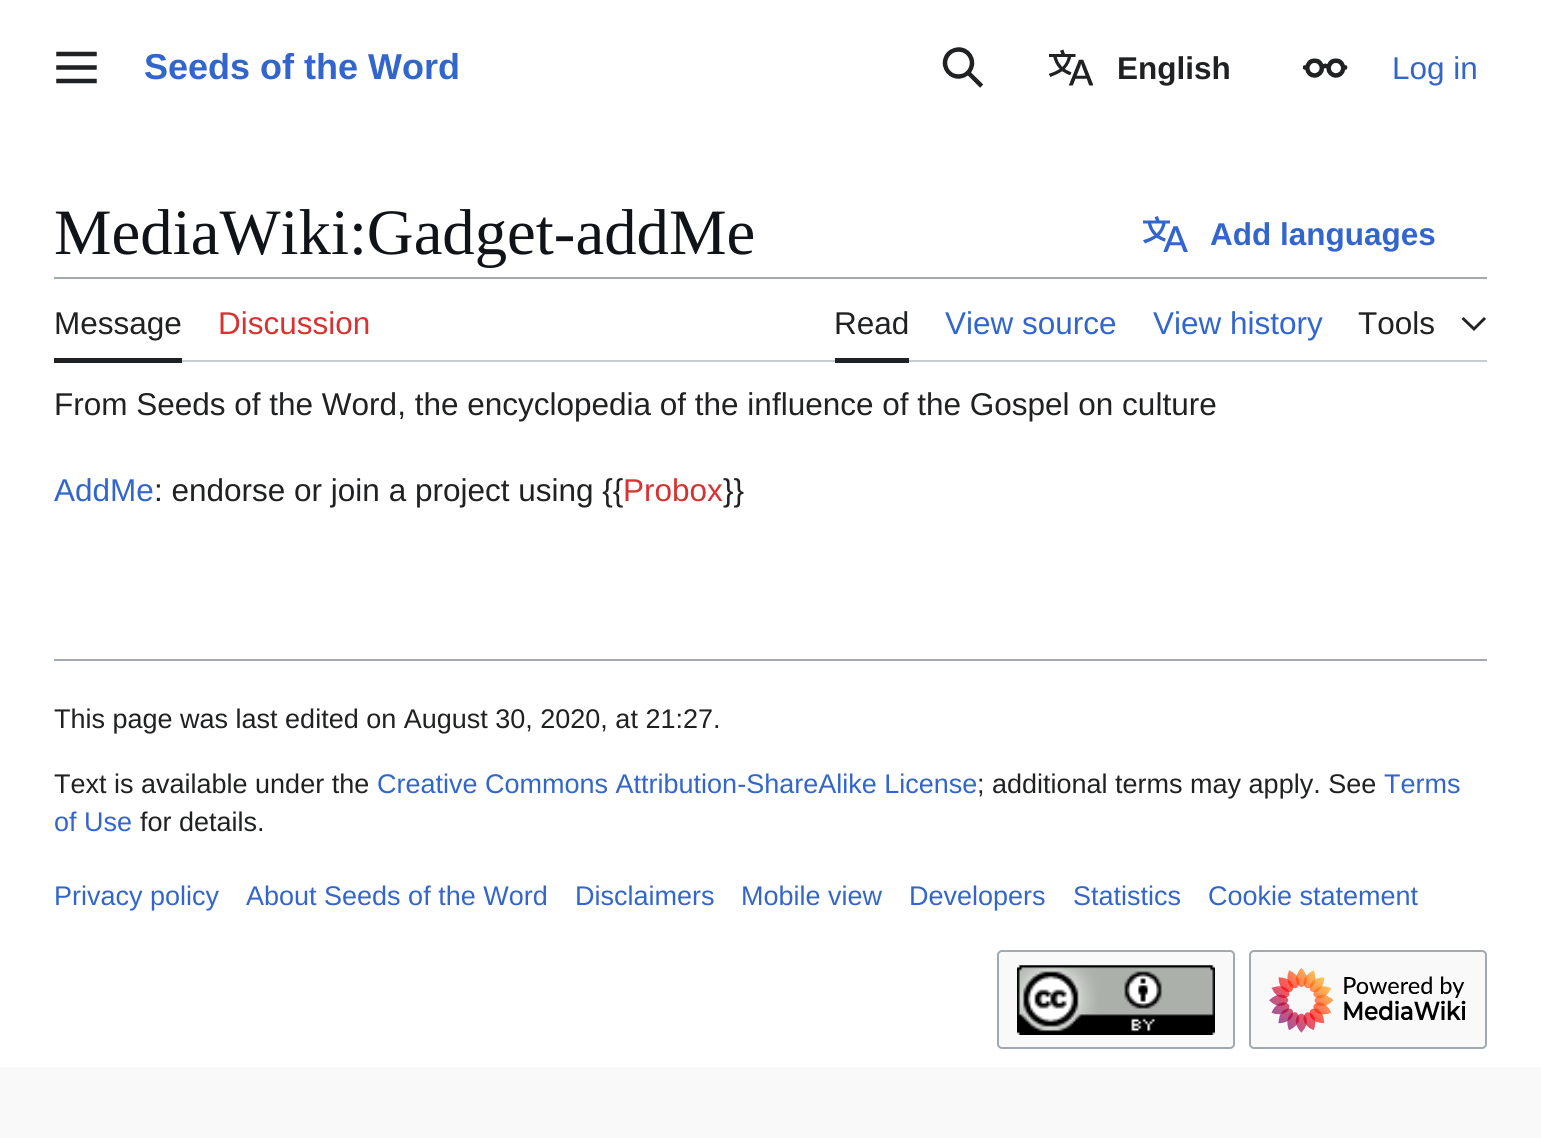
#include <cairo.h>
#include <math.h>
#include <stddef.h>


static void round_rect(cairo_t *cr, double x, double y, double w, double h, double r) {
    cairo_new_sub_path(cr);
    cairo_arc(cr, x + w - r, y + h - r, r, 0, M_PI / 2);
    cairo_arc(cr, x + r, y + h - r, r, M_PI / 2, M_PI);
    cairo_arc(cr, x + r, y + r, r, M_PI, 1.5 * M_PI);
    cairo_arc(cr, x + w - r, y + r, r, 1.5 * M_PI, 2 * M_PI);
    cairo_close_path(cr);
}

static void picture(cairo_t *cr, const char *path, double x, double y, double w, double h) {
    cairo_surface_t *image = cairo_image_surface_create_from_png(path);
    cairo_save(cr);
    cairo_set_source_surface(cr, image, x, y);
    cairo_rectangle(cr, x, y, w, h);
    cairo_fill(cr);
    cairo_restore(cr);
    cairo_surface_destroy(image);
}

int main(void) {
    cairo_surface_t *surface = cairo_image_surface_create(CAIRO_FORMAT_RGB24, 1541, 1138);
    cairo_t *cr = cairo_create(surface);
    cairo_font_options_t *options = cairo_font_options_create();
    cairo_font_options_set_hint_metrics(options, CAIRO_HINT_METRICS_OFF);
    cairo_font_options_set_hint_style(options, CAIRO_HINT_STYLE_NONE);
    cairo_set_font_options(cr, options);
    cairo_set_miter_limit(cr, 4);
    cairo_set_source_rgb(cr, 0.973, 0.976, 0.98);
    cairo_paint(cr);
    cairo_set_source_rgb(cr, 1, 1, 1);
    cairo_rectangle(cr, 0, 0, 1541, 1067);
    cairo_fill(cr);
    picture(cr, "img1.png", 56, 51, 41, 33);
    cairo_select_font_face(cr, "Liberation Sans", CAIRO_FONT_SLANT_NORMAL, CAIRO_FONT_WEIGHT_BOLD);
    cairo_set_font_size(cr, 36);
    cairo_set_source_rgb(cr, 0.2, 0.4, 0.8);
    cairo_move_to(cr, 144, 79);
    cairo_show_text(cr, "Seeds of the Word");
    picture(cr, "img2.png", 942, 47, 42, 41);
    picture(cr, "img3.png", 1049, 49, 45, 37);
    cairo_set_font_size(cr, 31.5);
    cairo_set_source_rgb(cr, 0.125, 0.129, 0.133);
    cairo_move_to(cr, 1117, 79);
    cairo_show_text(cr, "English");
    picture(cr, "img4.png", 1303, 58, 45, 20);
    cairo_select_font_face(cr, "Liberation Sans", CAIRO_FONT_SLANT_NORMAL, CAIRO_FONT_WEIGHT_NORMAL);
    cairo_set_source_rgb(cr, 0.2, 0.4, 0.8);
    cairo_move_to(cr, 1392, 79);
    cairo_show_text(cr, "Log in");
    cairo_select_font_face(cr, "Liberation Serif", CAIRO_FONT_SLANT_NORMAL, CAIRO_FONT_WEIGHT_NORMAL);
    cairo_set_font_size(cr, 64.75);
    cairo_set_source_rgb(cr, 0.063, 0.078, 0.094);
    cairo_move_to(cr, 54, 254);
    cairo_show_text(cr, "MediaWiki:Gadget-addMe");
    picture(cr, "img5.png", 1143, 216, 45, 36);
    cairo_select_font_face(cr, "Liberation Sans", CAIRO_FONT_SLANT_NORMAL, CAIRO_FONT_WEIGHT_BOLD);
    cairo_set_font_size(cr, 31.5);
    cairo_set_source_rgb(cr, 0.2, 0.4, 0.8);
    cairo_move_to(cr, 1210, 245);
    cairo_show_text(cr, "Add languages");
    cairo_set_source_rgb(cr, 0.635, 0.663, 0.694);
    cairo_rectangle(cr, 54, 277, 1433, 2);
    cairo_fill(cr);
    cairo_set_source_rgb(cr, 0.784, 0.8, 0.82);
    cairo_rectangle(cr, 182, 360, 1305, 2);
    cairo_fill(cr);
    cairo_set_source_rgb(cr, 0.125, 0.129, 0.133);
    cairo_rectangle(cr, 54, 358, 128, 5);
    cairo_fill(cr);
    cairo_select_font_face(cr, "Liberation Sans", CAIRO_FONT_SLANT_NORMAL, CAIRO_FONT_WEIGHT_NORMAL);
    cairo_move_to(cr, 54, 334);
    cairo_show_text(cr, "Message");
    cairo_set_source_rgb(cr, 0.843, 0.2, 0.2);
    cairo_move_to(cr, 218, 334);
    cairo_show_text(cr, "Discussion");
    cairo_set_source_rgb(cr, 0.125, 0.129, 0.133);
    cairo_rectangle(cr, 835, 358, 74, 5);
    cairo_fill(cr);
    cairo_move_to(cr, 834, 334);
    cairo_show_text(cr, "Read");
    cairo_set_source_rgb(cr, 0.2, 0.4, 0.8);
    cairo_move_to(cr, 945, 334);
    cairo_show_text(cr, "View source");
    cairo_move_to(cr, 1153, 334);
    cairo_show_text(cr, "View history");
    cairo_set_source_rgb(cr, 0.125, 0.129, 0.133);
    cairo_move_to(cr, 1358, 334);
    cairo_show_text(cr, "Tools");
    cairo_new_path(cr);
    cairo_move_to(cr, 1484, 317);
    cairo_line_to(cr, 1474, 327);
    cairo_line_to(cr, 1463.5, 317);
    cairo_line_to(cr, 1461.5, 319);
    cairo_line_to(cr, 1474, 331);
    cairo_line_to(cr, 1486, 319);
    cairo_close_path(cr);
    cairo_fill(cr);
    cairo_move_to(cr, 54, 415);
    cairo_show_text(cr, "From Seeds of the Word, the encyclopedia of the influence of the Gospel on culture");
    cairo_set_source_rgb(cr, 0.2, 0.4, 0.8);
    cairo_move_to(cr, 54, 501);
    cairo_show_text(cr, "AddMe");
    cairo_set_source_rgb(cr, 0.125, 0.129, 0.133);
    cairo_move_to(cr, 154, 501);
    cairo_show_text(cr, ": endorse or join a project using {{");
    cairo_set_source_rgb(cr, 0.843, 0.2, 0.2);
    cairo_move_to(cr, 623, 501);
    cairo_show_text(cr, "Probox");
    cairo_set_source_rgb(cr, 0.125, 0.129, 0.133);
    cairo_move_to(cr, 723, 501);
    cairo_show_text(cr, "}}");
    cairo_set_source_rgb(cr, 0.635, 0.663, 0.694);
    cairo_rectangle(cr, 54, 659, 1433, 2);
    cairo_fill(cr);
    cairo_set_font_size(cr, 27);
    cairo_set_source_rgb(cr, 0.125, 0.129, 0.133);
    cairo_move_to(cr, 54, 728);
    cairo_show_text(cr, "This page was last edited on August 30, 2020, at 21:27.");
    cairo_move_to(cr, 54, 793);
    cairo_show_text(cr, "Text is available under the");
    cairo_set_source_rgb(cr, 0.2, 0.4, 0.8);
    cairo_move_to(cr, 377, 793);
    cairo_show_text(cr, "Creative Commons Attribution-ShareAlike License");
    cairo_set_source_rgb(cr, 0.125, 0.129, 0.133);
    cairo_move_to(cr, 977, 793);
    cairo_show_text(cr, "; additional terms may apply. See");
    cairo_set_source_rgb(cr, 0.2, 0.4, 0.8);
    cairo_move_to(cr, 1384, 793);
    cairo_show_text(cr, "Terms");
    cairo_move_to(cr, 54, 831);
    cairo_show_text(cr, "of Use");
    cairo_set_source_rgb(cr, 0.125, 0.129, 0.133);
    cairo_move_to(cr, 140, 831);
    cairo_show_text(cr, "for details.");
    cairo_set_source_rgb(cr, 0.2, 0.4, 0.8);
    cairo_move_to(cr, 54, 905);
    cairo_show_text(cr, "Privacy policy");
    cairo_move_to(cr, 246, 905);
    cairo_show_text(cr, "About Seeds of the Word");
    cairo_move_to(cr, 575, 905);
    cairo_show_text(cr, "Disclaimers");
    cairo_move_to(cr, 741, 905);
    cairo_show_text(cr, "Mobile view");
    cairo_move_to(cr, 909, 905);
    cairo_show_text(cr, "Developers");
    cairo_move_to(cr, 1073, 905);
    cairo_show_text(cr, "Statistics");
    cairo_move_to(cr, 1208, 905);
    cairo_show_text(cr, "Cookie statement");
    cairo_set_source_rgb(cr, 0.973, 0.976, 0.98);
    round_rect(cr, 998, 951, 236, 97, 4);
    cairo_fill_preserve(cr);
    cairo_set_source_rgb(cr, 0.635, 0.663, 0.694);
    cairo_stroke(cr);
    picture(cr, "img6.png", 1017, 965, 198, 70);
    cairo_set_source_rgb(cr, 0.973, 0.976, 0.98);
    round_rect(cr, 1250, 951, 236, 97, 4);
    cairo_fill_preserve(cr);
    cairo_set_source_rgb(cr, 0.635, 0.663, 0.694);
    cairo_stroke(cr);
    picture(cr, "img7.png", 1269, 967, 197, 66);
    cairo_surface_write_to_png(surface, "page.png");
    cairo_font_options_destroy(options);
    cairo_destroy(cr);
    cairo_surface_destroy(surface);
    return 0;
}
